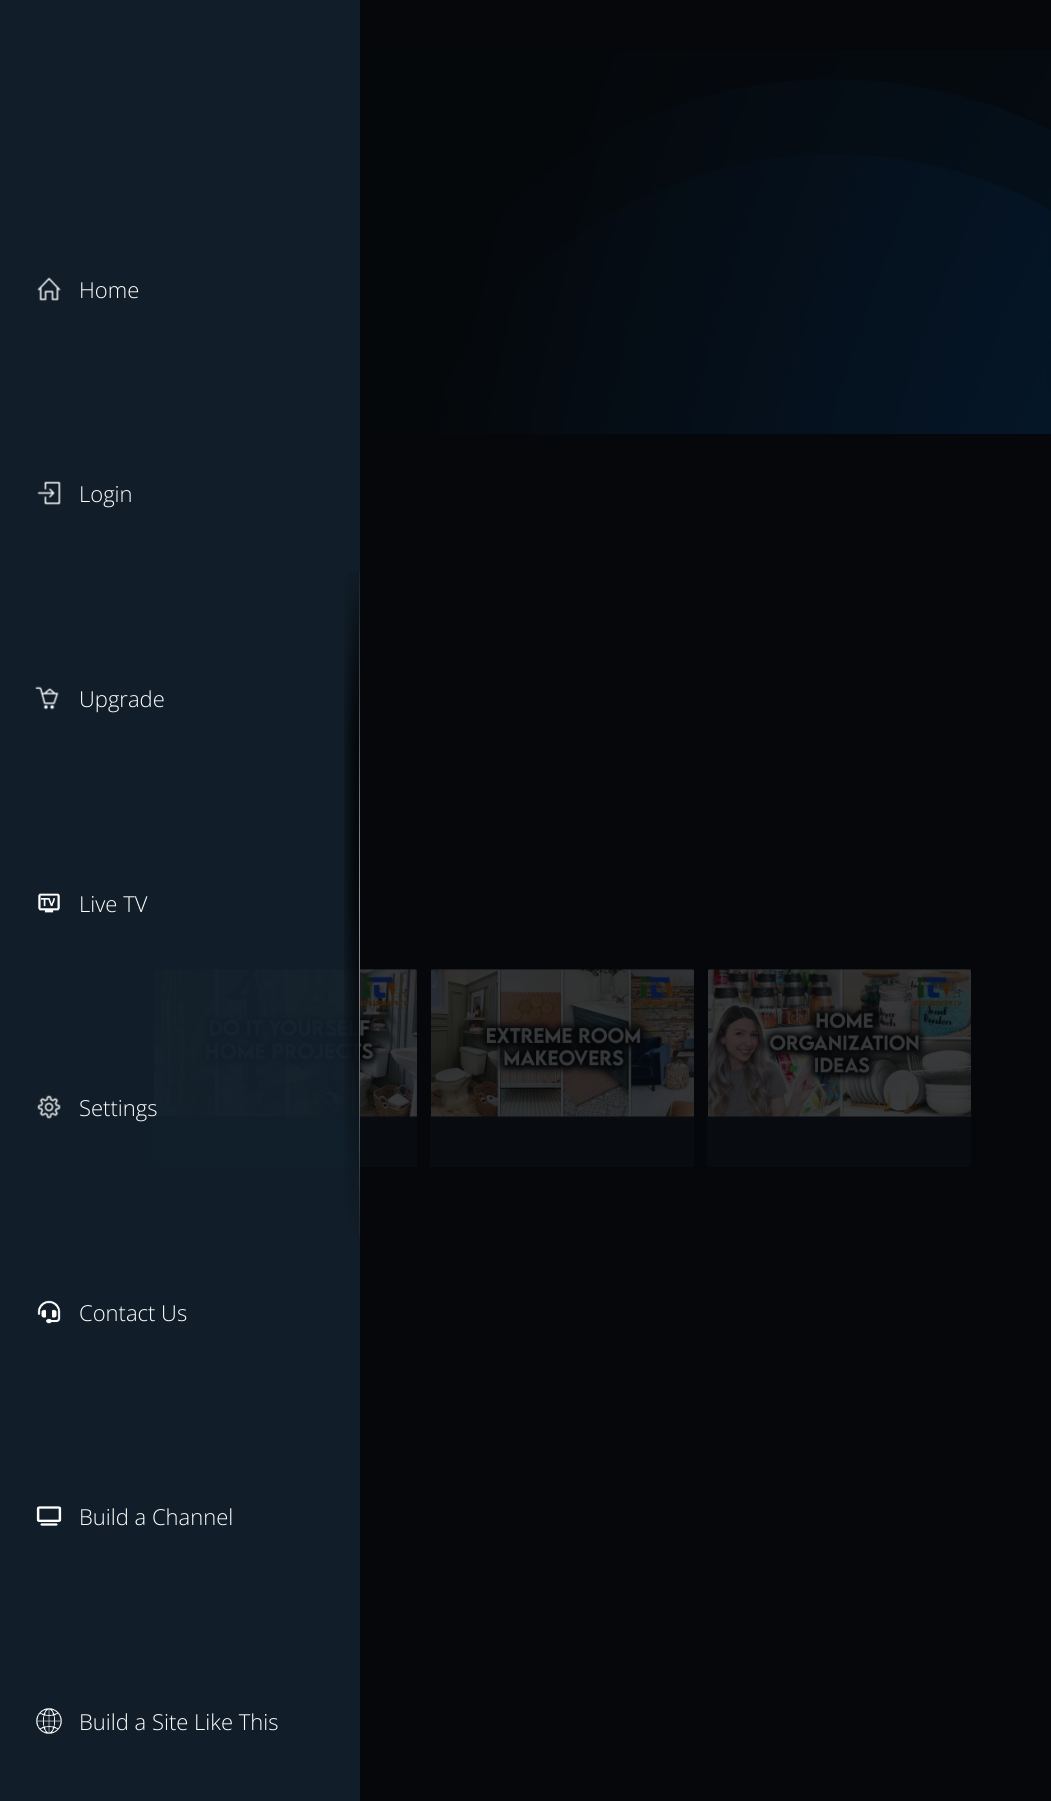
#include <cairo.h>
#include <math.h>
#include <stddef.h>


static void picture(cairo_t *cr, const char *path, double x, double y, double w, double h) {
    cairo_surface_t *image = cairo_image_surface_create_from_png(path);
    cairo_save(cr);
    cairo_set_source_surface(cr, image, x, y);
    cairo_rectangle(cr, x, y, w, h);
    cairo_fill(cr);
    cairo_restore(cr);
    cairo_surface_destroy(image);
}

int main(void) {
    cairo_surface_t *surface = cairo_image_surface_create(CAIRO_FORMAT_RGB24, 1051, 1801);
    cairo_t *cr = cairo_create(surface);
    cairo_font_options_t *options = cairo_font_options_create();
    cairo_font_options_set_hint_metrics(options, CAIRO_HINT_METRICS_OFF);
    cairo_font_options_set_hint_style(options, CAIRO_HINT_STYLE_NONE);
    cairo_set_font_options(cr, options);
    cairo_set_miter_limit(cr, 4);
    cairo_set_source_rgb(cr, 0.02, 0.031, 0.043);
    cairo_paint(cr);
    picture(cr, "img1.png", 423, 50, 628, 384);
    picture(cr, "img2.png", 368, 50, 683, 384);
    cairo_set_source_rgb(cr, 0.071, 0.122, 0.165);
    cairo_new_path(cr);
    cairo_move_to(cr, 153, 1116);
    cairo_line_to(cr, 417, 1116);
    cairo_line_to(cr, 417, 1165);
    cairo_curve_to(cr, 417, 1166, 416, 1167, 415, 1167);
    cairo_line_to(cr, 155, 1167);
    cairo_curve_to(cr, 154, 1167, 153, 1166, 153, 1165);
    cairo_close_path(cr);
    cairo_fill(cr);
    picture(cr, "img3.png", 154, 969, 263, 148);
    cairo_new_path(cr);
    cairo_move_to(cr, 430, 1116);
    cairo_line_to(cr, 694, 1116);
    cairo_line_to(cr, 694, 1165);
    cairo_curve_to(cr, 694, 1166, 693, 1167, 692, 1167);
    cairo_line_to(cr, 432, 1167);
    cairo_curve_to(cr, 431, 1167, 430, 1166, 430, 1165);
    cairo_close_path(cr);
    cairo_fill(cr);
    picture(cr, "img4.png", 431, 969, 263, 148);
    cairo_new_path(cr);
    cairo_move_to(cr, 707, 1116);
    cairo_line_to(cr, 971, 1116);
    cairo_line_to(cr, 971, 1165);
    cairo_curve_to(cr, 971, 1166, 970, 1167, 969, 1167);
    cairo_line_to(cr, 709, 1167);
    cairo_curve_to(cr, 708, 1167, 707, 1166, 707, 1165);
    cairo_close_path(cr);
    cairo_fill(cr);
    picture(cr, "img5.png", 708, 969, 263, 148);
    cairo_set_source_rgba(cr, 0.071, 0.122, 0.165, 0.98);
    cairo_rectangle(cr, 0, 0, 360, 1801);
    cairo_fill(cr);
    picture(cr, "img6.png", 344, 572, 16, 666);
    picture(cr, "img7.png", 344, 572, 16, 666);
    picture(cr, "img8.png", 37, 277, 24, 24);
    cairo_select_font_face(cr, "Open Sans Light", CAIRO_FONT_SLANT_NORMAL, CAIRO_FONT_WEIGHT_NORMAL);
    cairo_set_font_size(cr, 22);
    cairo_set_source_rgb(cr, 1, 1, 1);
    cairo_move_to(cr, 79, 298);
    cairo_show_text(cr, "Home");
    picture(cr, "img9.png", 37, 481, 24, 24);
    cairo_move_to(cr, 79, 502);
    cairo_show_text(cr, "Login");
    picture(cr, "img10.png", 35, 686, 24, 24);
    cairo_move_to(cr, 79, 707);
    cairo_show_text(cr, "Upgrade");
    picture(cr, "img11.png", 38, 893, 22, 20);
    cairo_move_to(cr, 79, 912);
    cairo_show_text(cr, "Live TV");
    picture(cr, "img12.png", 37, 1095, 24, 24);
    cairo_move_to(cr, 79, 1116);
    cairo_show_text(cr, "Settings");
    picture(cr, "img13.png", 37, 1300, 24, 24);
    cairo_move_to(cr, 79, 1321);
    cairo_show_text(cr, "Contact Us");
    picture(cr, "img14.png", 36, 1506, 26, 20);
    cairo_move_to(cr, 79, 1525);
    cairo_show_text(cr, "Build a Channel");
    picture(cr, "img15.png", 36, 1708, 26, 26);
    cairo_move_to(cr, 79, 1730);
    cairo_show_text(cr, "Build a Site Like This");
    cairo_set_source_rgba(cr, 0.02, 0.031, 0.043, 0.8);
    cairo_rectangle(cr, 360, 50, 691, 1117);
    cairo_fill(cr);
    cairo_surface_write_to_png(surface, "page.png");
    cairo_font_options_destroy(options);
    cairo_destroy(cr);
    cairo_surface_destroy(surface);
    return 0;
}
